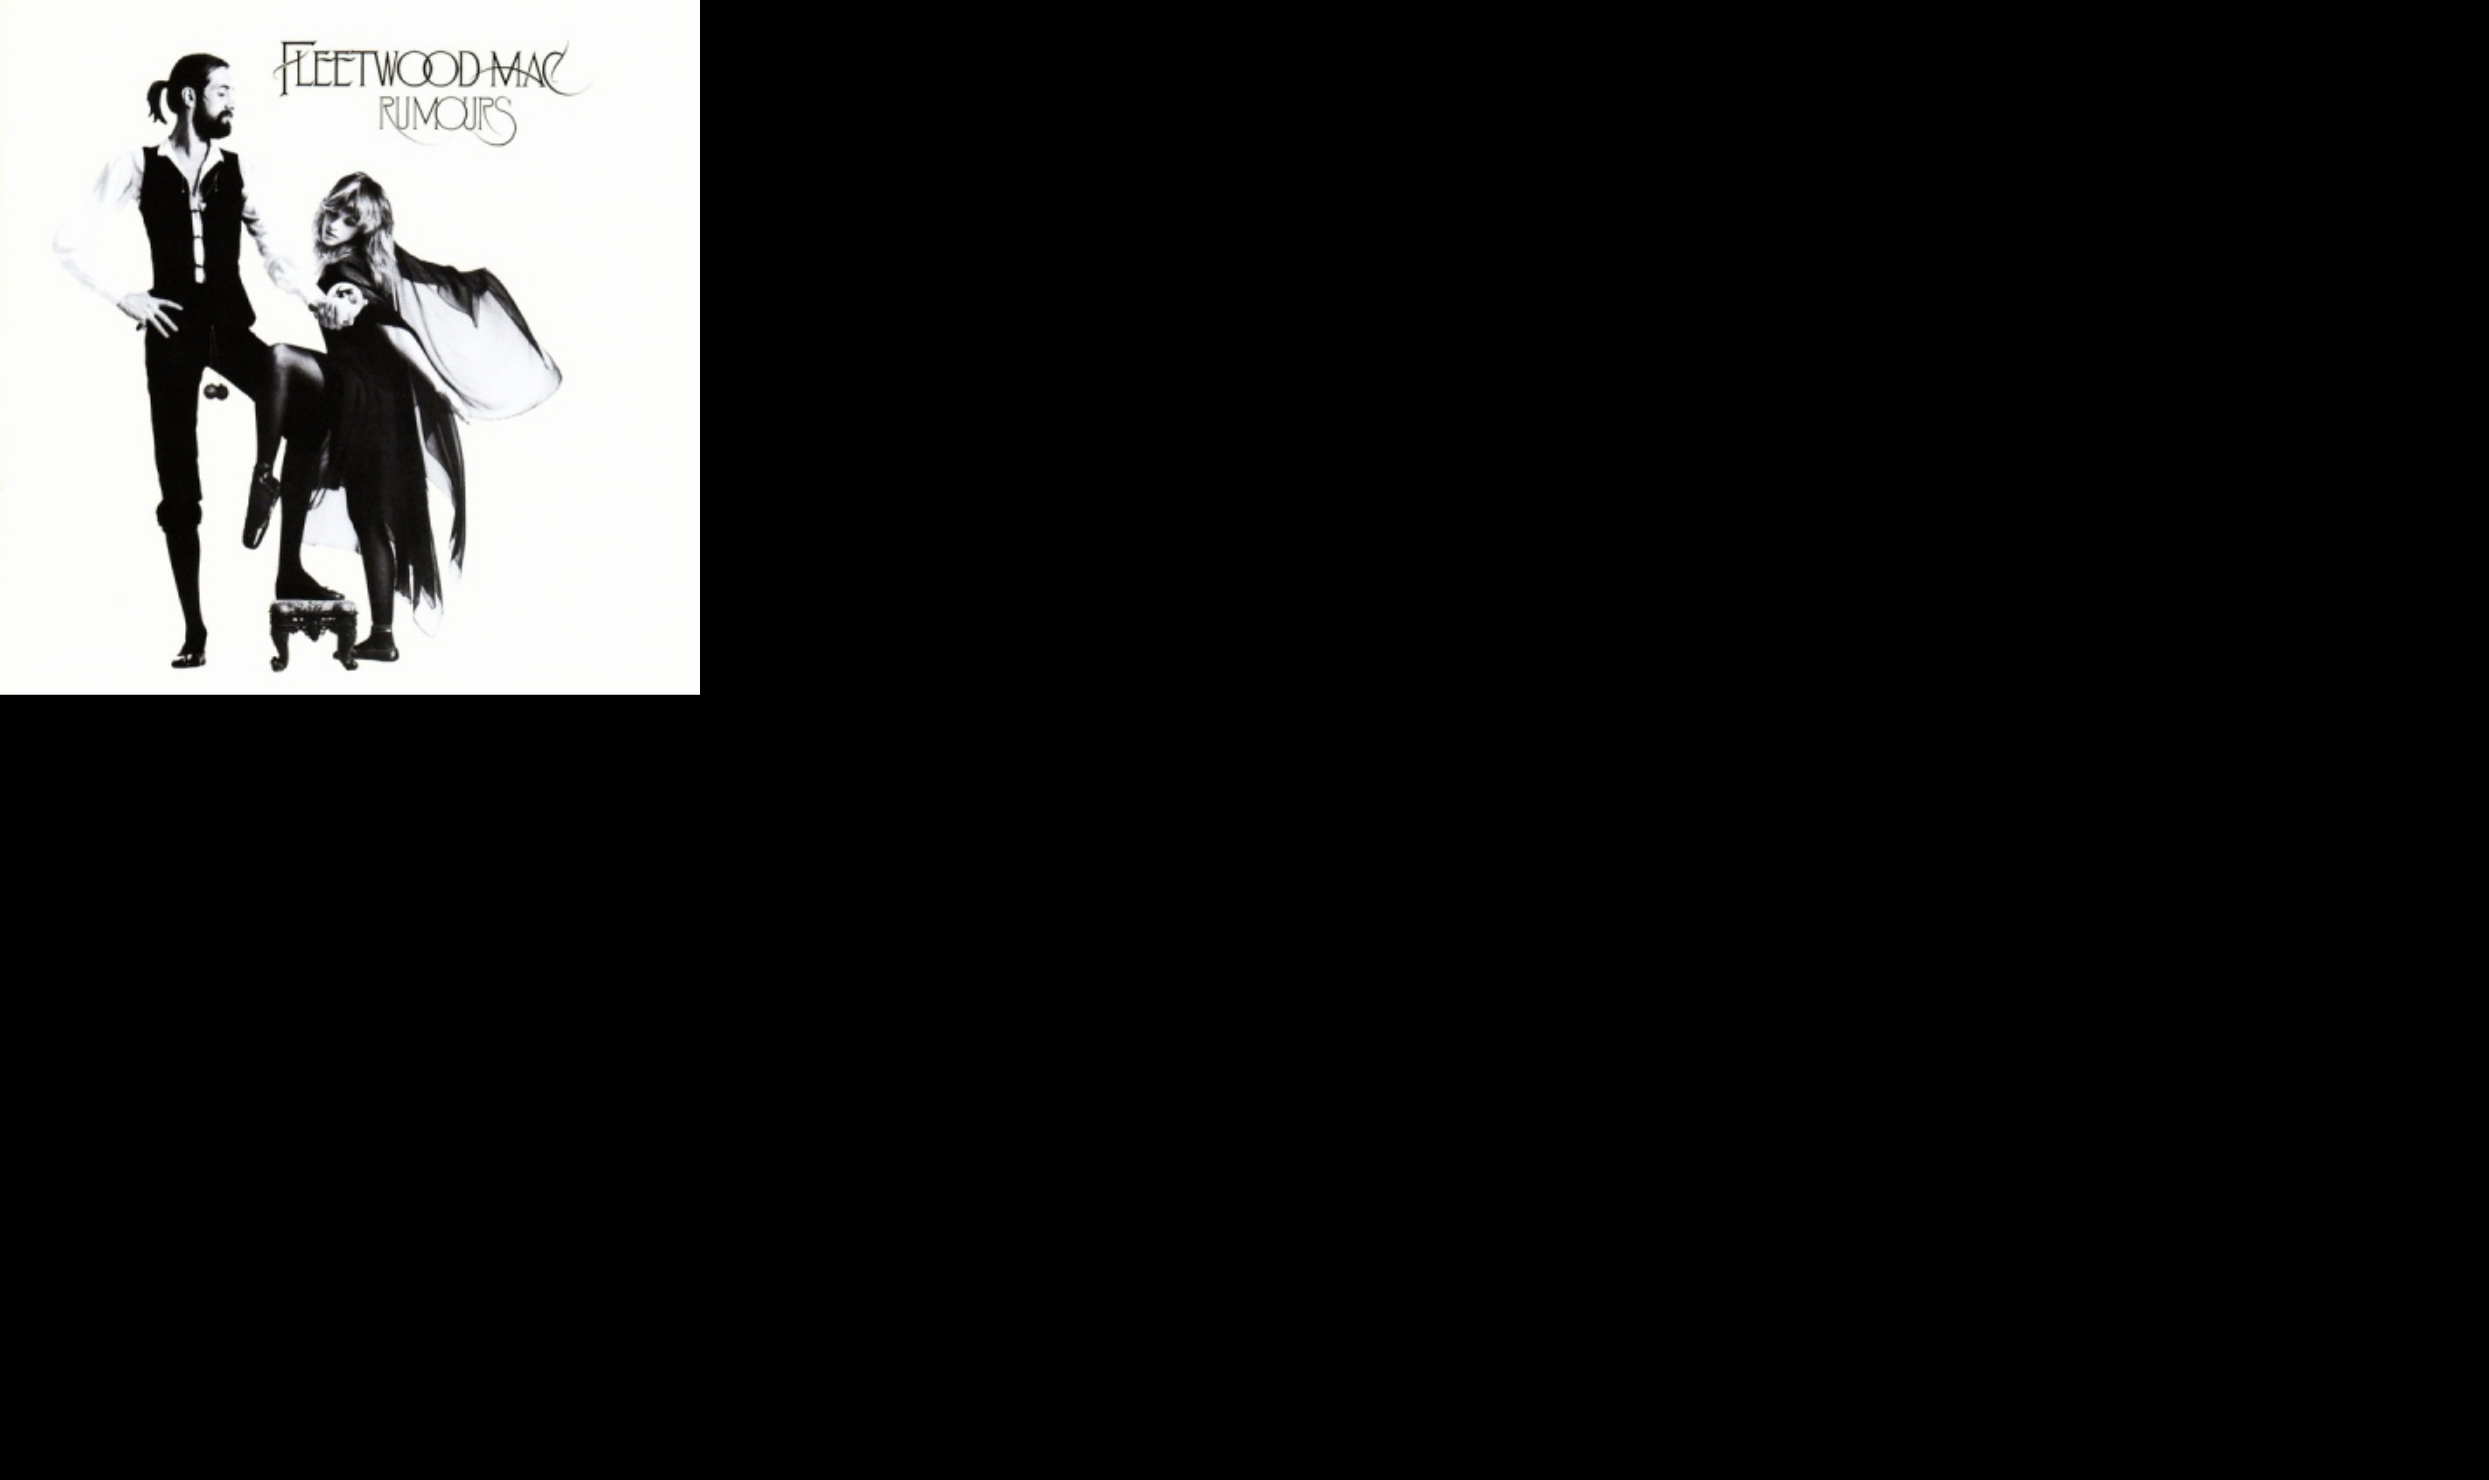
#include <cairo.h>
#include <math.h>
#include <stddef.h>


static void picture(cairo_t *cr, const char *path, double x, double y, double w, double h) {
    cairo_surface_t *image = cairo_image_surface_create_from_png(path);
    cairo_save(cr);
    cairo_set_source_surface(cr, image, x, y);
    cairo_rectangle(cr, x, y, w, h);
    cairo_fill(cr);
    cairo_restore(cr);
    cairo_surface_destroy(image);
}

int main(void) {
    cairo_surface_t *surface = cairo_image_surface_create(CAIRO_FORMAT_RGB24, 2489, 1480);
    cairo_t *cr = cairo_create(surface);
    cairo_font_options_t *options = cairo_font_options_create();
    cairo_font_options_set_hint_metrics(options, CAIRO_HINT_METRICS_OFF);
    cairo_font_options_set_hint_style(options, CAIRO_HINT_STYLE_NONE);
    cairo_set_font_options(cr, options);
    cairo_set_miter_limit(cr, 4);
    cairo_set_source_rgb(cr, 0, 0, 0);
    cairo_paint(cr);
    picture(cr, "img1.png", 0, 0, 700, 695);
    cairo_surface_write_to_png(surface, "page.png");
    cairo_font_options_destroy(options);
    cairo_destroy(cr);
    cairo_surface_destroy(surface);
    return 0;
}
